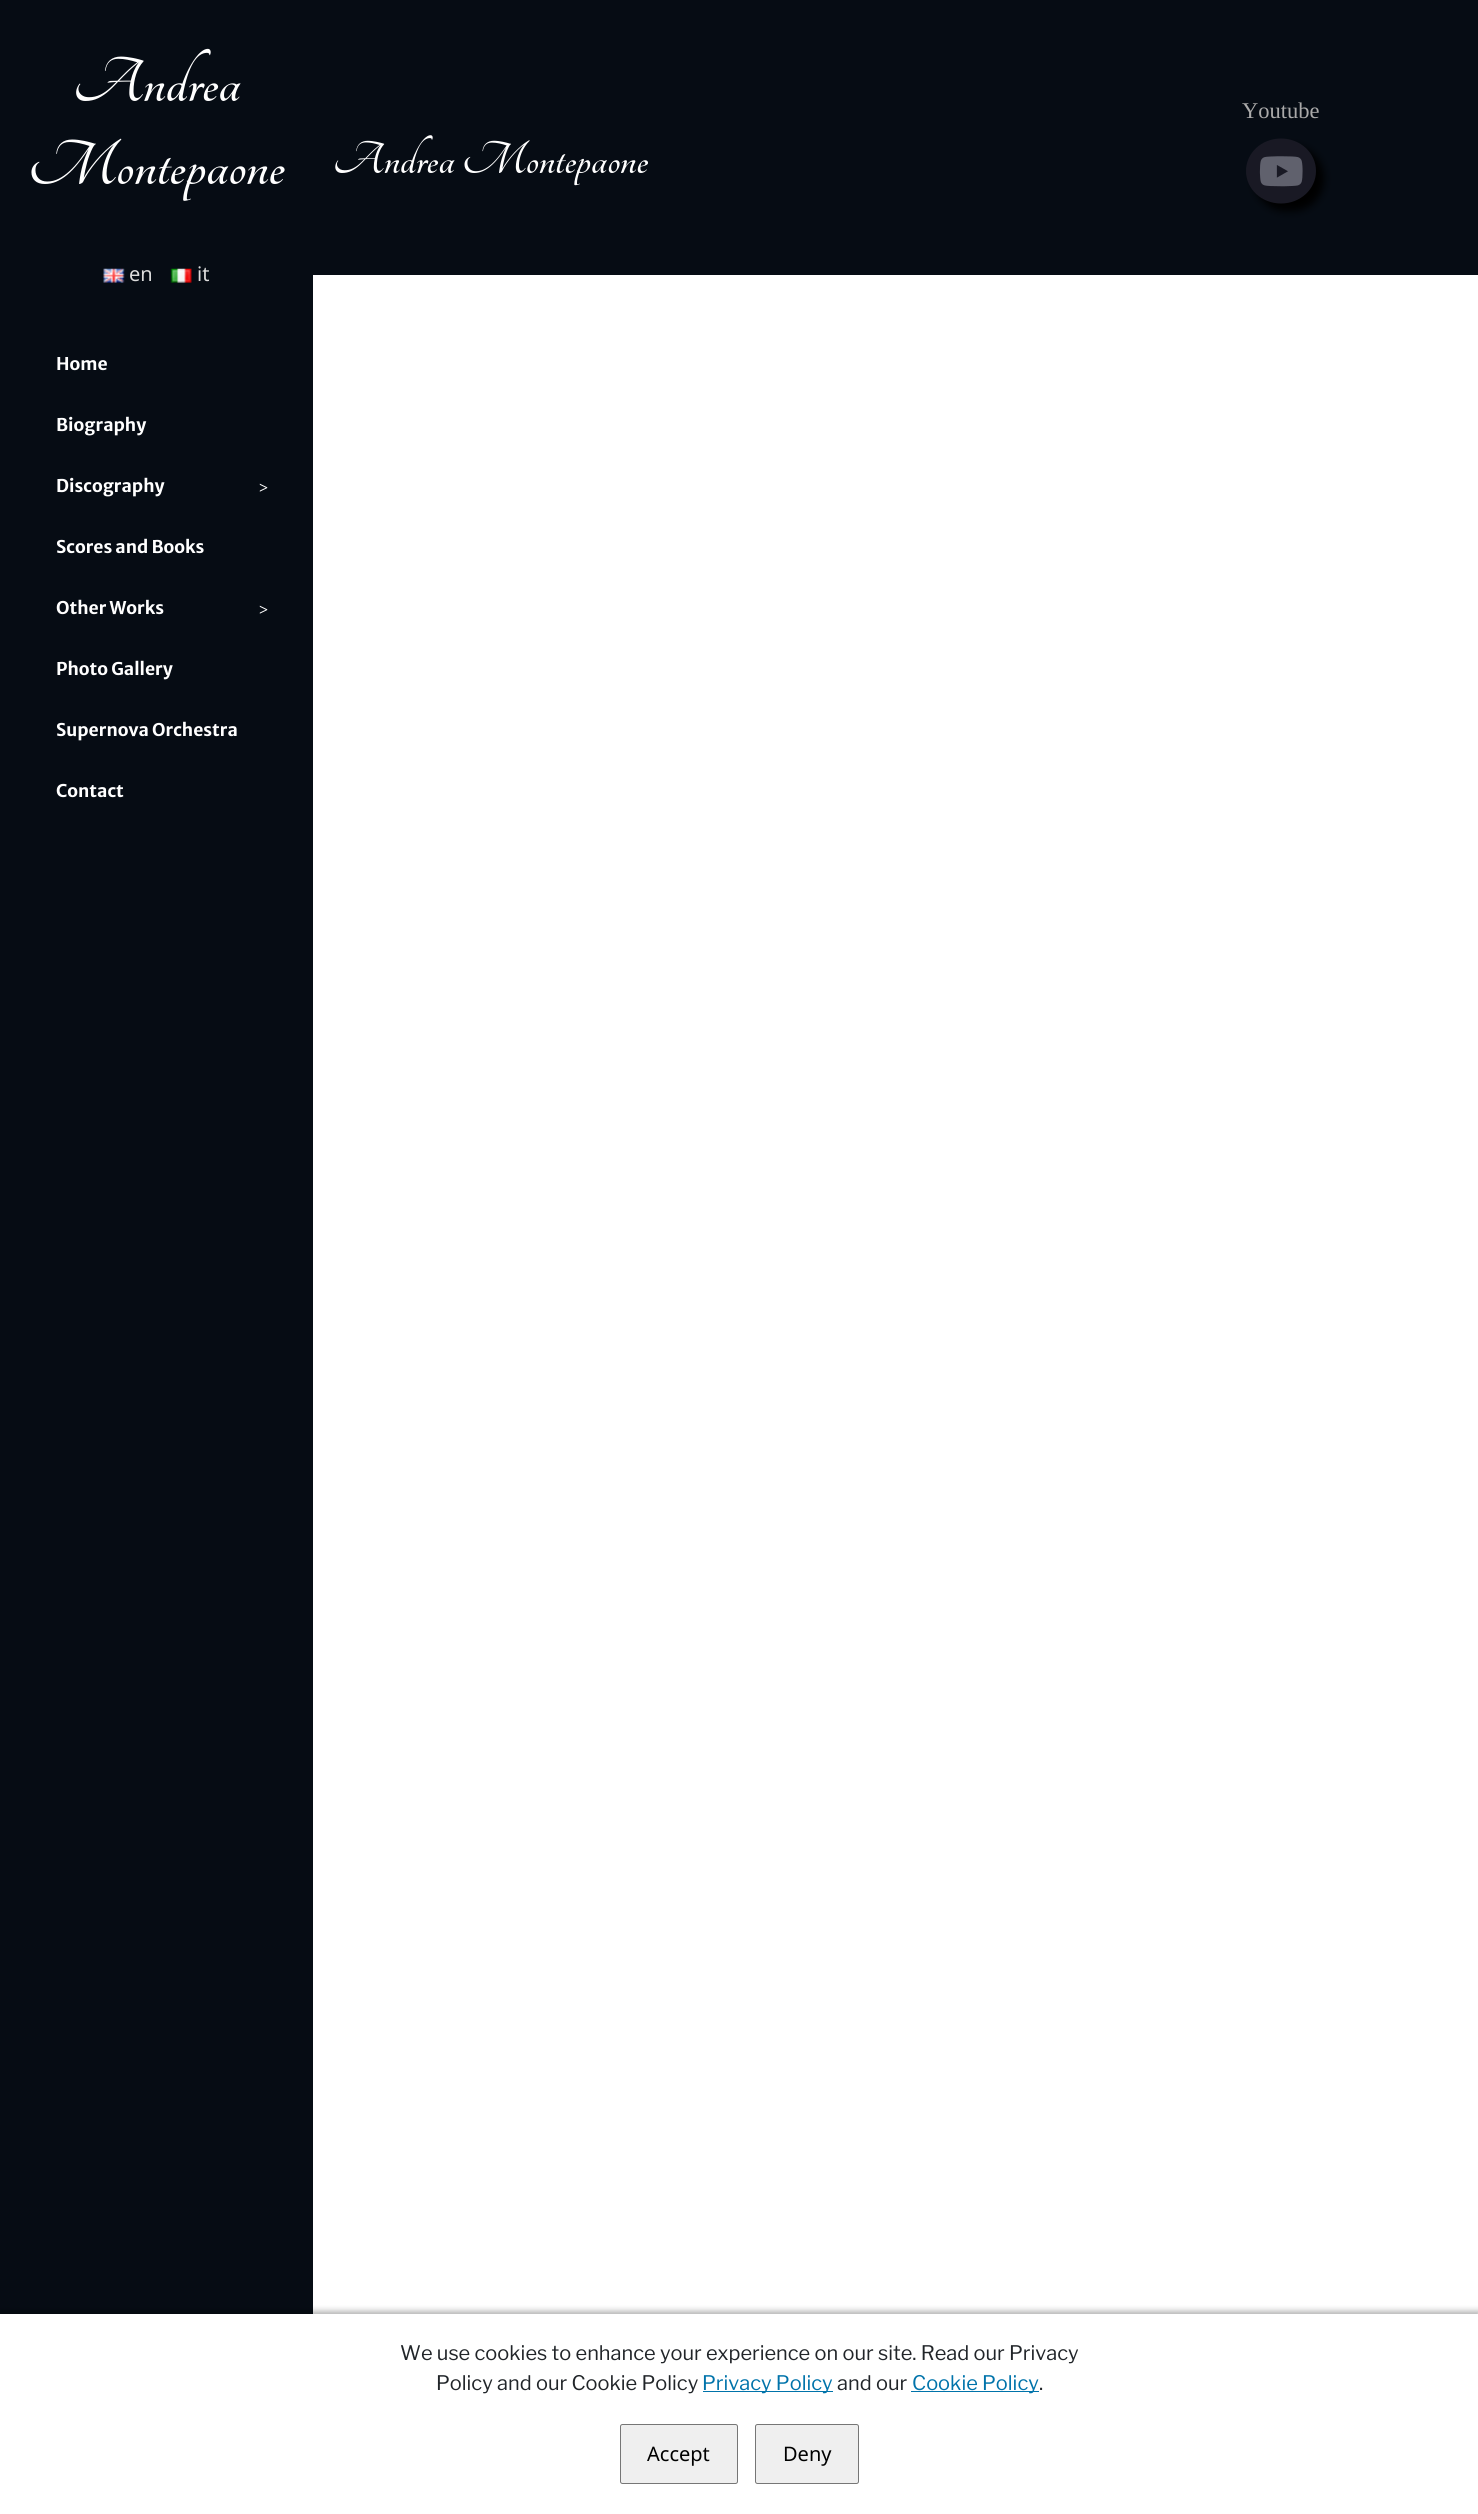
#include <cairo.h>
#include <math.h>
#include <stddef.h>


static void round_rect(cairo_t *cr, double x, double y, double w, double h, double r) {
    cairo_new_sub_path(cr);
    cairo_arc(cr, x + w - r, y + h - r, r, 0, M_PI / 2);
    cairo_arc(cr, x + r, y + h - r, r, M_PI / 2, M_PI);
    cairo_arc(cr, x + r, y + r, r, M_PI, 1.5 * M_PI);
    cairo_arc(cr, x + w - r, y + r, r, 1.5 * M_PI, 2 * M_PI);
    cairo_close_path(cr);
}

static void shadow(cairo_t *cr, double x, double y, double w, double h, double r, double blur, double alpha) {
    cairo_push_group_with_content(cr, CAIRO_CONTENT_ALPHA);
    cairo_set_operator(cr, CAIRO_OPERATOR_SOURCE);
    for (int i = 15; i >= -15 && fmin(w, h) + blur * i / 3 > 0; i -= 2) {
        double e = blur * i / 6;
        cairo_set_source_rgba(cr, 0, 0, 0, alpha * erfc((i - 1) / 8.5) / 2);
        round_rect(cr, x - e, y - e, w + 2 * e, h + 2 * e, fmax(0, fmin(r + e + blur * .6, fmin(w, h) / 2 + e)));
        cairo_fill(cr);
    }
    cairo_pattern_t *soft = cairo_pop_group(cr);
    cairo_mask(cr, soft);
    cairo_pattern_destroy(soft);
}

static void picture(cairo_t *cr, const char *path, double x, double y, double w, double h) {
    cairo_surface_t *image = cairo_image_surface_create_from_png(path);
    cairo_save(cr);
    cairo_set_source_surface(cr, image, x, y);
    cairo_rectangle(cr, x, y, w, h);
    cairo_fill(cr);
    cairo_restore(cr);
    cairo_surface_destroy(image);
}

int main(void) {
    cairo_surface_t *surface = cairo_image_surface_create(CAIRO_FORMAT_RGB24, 1478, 2514);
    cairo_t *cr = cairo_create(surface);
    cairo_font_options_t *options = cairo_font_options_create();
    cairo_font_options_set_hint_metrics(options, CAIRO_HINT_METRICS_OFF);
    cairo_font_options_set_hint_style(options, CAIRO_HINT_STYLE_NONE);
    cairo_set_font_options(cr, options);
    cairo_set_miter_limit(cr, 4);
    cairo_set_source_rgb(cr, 1, 1, 1);
    cairo_paint(cr);
    cairo_set_source_rgb(cr, 0.024, 0.047, 0.082);
    cairo_rectangle(cr, 0, 0, 313, 2314);
    cairo_fill(cr);
    cairo_select_font_face(cr, "Tangerine", CAIRO_FONT_SLANT_NORMAL, CAIRO_FONT_WEIGHT_BOLD);
    cairo_set_font_size(cr, 69);
    cairo_set_source_rgb(cr, 1, 1, 1);
    cairo_move_to(cr, 73, 101);
    cairo_show_text(cr, "Andrea");
    cairo_move_to(cr, 28, 184);
    cairo_show_text(cr, "Montepaone");
    picture(cr, "img1.png", 103, 268, 22, 15);
    cairo_select_font_face(cr, "Noto Sans", CAIRO_FONT_SLANT_NORMAL, CAIRO_FONT_WEIGHT_NORMAL);
    cairo_set_font_size(cr, 20);
    cairo_set_source_rgb(cr, 0.867, 0.867, 0.867);
    cairo_move_to(cr, 129, 281);
    cairo_show_text(cr, "en");
    picture(cr, "img2.png", 170, 268, 22, 15);
    cairo_move_to(cr, 197, 281);
    cairo_show_text(cr, "it");
    cairo_select_font_face(cr, "Merriweather Sans", CAIRO_FONT_SLANT_NORMAL, CAIRO_FONT_WEIGHT_BOLD);
    cairo_set_font_size(cr, 17.5);
    cairo_set_source_rgb(cr, 1, 1, 1);
    cairo_move_to(cr, 56, 370);
    cairo_show_text(cr, "Home");
    cairo_move_to(cr, 56, 431);
    cairo_show_text(cr, "Biography");
    cairo_move_to(cr, 56, 492);
    cairo_show_text(cr, "Discography");
    cairo_select_font_face(cr, "Liberation Serif", CAIRO_FONT_SLANT_NORMAL, CAIRO_FONT_WEIGHT_BOLD);
    cairo_set_font_size(cr, 16);
    cairo_move_to(cr, 259, 493);
    cairo_show_text(cr, ">");
    cairo_select_font_face(cr, "Merriweather Sans", CAIRO_FONT_SLANT_NORMAL, CAIRO_FONT_WEIGHT_BOLD);
    cairo_set_font_size(cr, 17.5);
    cairo_move_to(cr, 56, 553);
    cairo_show_text(cr, "Scores and Books");
    cairo_move_to(cr, 56, 614);
    cairo_show_text(cr, "Other Works");
    cairo_select_font_face(cr, "Liberation Serif", CAIRO_FONT_SLANT_NORMAL, CAIRO_FONT_WEIGHT_BOLD);
    cairo_set_font_size(cr, 16);
    cairo_move_to(cr, 259, 615);
    cairo_show_text(cr, ">");
    cairo_select_font_face(cr, "Merriweather Sans", CAIRO_FONT_SLANT_NORMAL, CAIRO_FONT_WEIGHT_BOLD);
    cairo_set_font_size(cr, 17.5);
    cairo_move_to(cr, 56, 675);
    cairo_show_text(cr, "Photo Gallery");
    cairo_move_to(cr, 56, 736);
    cairo_show_text(cr, "Supernova Orchestra");
    cairo_move_to(cr, 56, 797);
    cairo_show_text(cr, "Contact");
    cairo_set_source_rgb(cr, 0.024, 0.047, 0.082);
    cairo_rectangle(cr, 313, 0, 1165, 275);
    cairo_fill(cr);
    cairo_select_font_face(cr, "Liberation Serif", CAIRO_FONT_SLANT_NORMAL, CAIRO_FONT_WEIGHT_NORMAL);
    cairo_set_font_size(cr, 22.5);
    cairo_set_source_rgb(cr, 0.667, 0.667, 0.667);
    cairo_move_to(cr, 1242, 118);
    cairo_show_text(cr, "Youtube");
    cairo_set_source_rgb(cr, 0, 0, 0);
    shadow(cr, 1254, 146, 70, 65, 32.5, 4, 1);
    cairo_set_source_rgb(cr, 0.098, 0.098, 0.141);
    cairo_new_path(cr);
    cairo_move_to(cr, 1281, 138.5);
    cairo_curve_to(cr, 1300.5, 138.5, 1316, 153, 1316, 171);
    cairo_curve_to(cr, 1316, 189, 1300.5, 203.5, 1281, 203.5);
    cairo_curve_to(cr, 1261.5, 203.5, 1246, 189, 1246, 171);
    cairo_curve_to(cr, 1246, 153, 1261.5, 138.5, 1281, 138.5);
    cairo_close_path(cr);
    cairo_fill(cr);
    picture(cr, "img3.png", 1259, 156, 44, 31);
    cairo_select_font_face(cr, "Tangerine", CAIRO_FONT_SLANT_NORMAL, CAIRO_FONT_WEIGHT_BOLD);
    cairo_set_font_size(cr, 50);
    cairo_set_source_rgb(cr, 1, 1, 1);
    cairo_move_to(cr, 333, 173);
    cairo_show_text(cr, "Andrea Montepaone");
    cairo_set_source_rgb(cr, 0, 0, 0);
    shadow(cr, 0, 2311, 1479, 202, 0, 3, 0.3);
    cairo_set_source_rgb(cr, 1, 1, 1);
    cairo_rectangle(cr, 0, 2314, 1478, 200);
    cairo_fill(cr);
    cairo_select_font_face(cr, "Libre Franklin", CAIRO_FONT_SLANT_NORMAL, CAIRO_FONT_WEIGHT_NORMAL);
    cairo_set_font_size(cr, 20);
    cairo_set_source_rgb(cr, 0.129, 0.145, 0.161);
    cairo_move_to(cr, 400, 2360);
    cairo_show_text(cr, "We use cookies to enhance your experience on our site. Read our Privacy");
    cairo_move_to(cr, 436, 2390);
    cairo_show_text(cr, "Policy and our Cookie Policy");
    cairo_set_source_rgb(cr, 0, 0.451, 0.667);
    cairo_rectangle(cr, 703, 2391, 130, 1);
    cairo_fill(cr);
    cairo_move_to(cr, 702, 2390);
    cairo_show_text(cr, "Privacy Policy");
    cairo_set_source_rgb(cr, 0.129, 0.145, 0.161);
    cairo_move_to(cr, 837, 2390);
    cairo_show_text(cr, "and our");
    cairo_set_source_rgb(cr, 0, 0.451, 0.667);
    cairo_rectangle(cr, 911, 2391, 128, 1);
    cairo_fill(cr);
    cairo_move_to(cr, 912, 2390);
    cairo_show_text(cr, "Cookie Policy");
    cairo_set_source_rgb(cr, 0.129, 0.145, 0.161);
    cairo_move_to(cr, 1039, 2390);
    cairo_show_text(cr, ".");
    cairo_set_source_rgb(cr, 0.937, 0.937, 0.937);
    round_rect(cr, 620.5, 2424.5, 117, 59, 2);
    cairo_fill_preserve(cr);
    cairo_set_source_rgb(cr, 0.463, 0.463, 0.463);
    cairo_set_line_width(cr, 1);
    cairo_stroke(cr);
    cairo_select_font_face(cr, "Noto Sans", CAIRO_FONT_SLANT_NORMAL, CAIRO_FONT_WEIGHT_NORMAL);
    cairo_set_source_rgb(cr, 0, 0, 0);
    cairo_move_to(cr, 647, 2461);
    cairo_show_text(cr, "Accept");
    cairo_set_source_rgb(cr, 0.937, 0.937, 0.937);
    round_rect(cr, 755.5, 2424.5, 103, 59, 2);
    cairo_fill_preserve(cr);
    cairo_set_source_rgb(cr, 0.463, 0.463, 0.463);
    cairo_stroke(cr);
    cairo_set_source_rgb(cr, 0, 0, 0);
    cairo_move_to(cr, 783, 2461);
    cairo_show_text(cr, "Deny");
    cairo_surface_write_to_png(surface, "page.png");
    cairo_font_options_destroy(options);
    cairo_destroy(cr);
    cairo_surface_destroy(surface);
    return 0;
}
